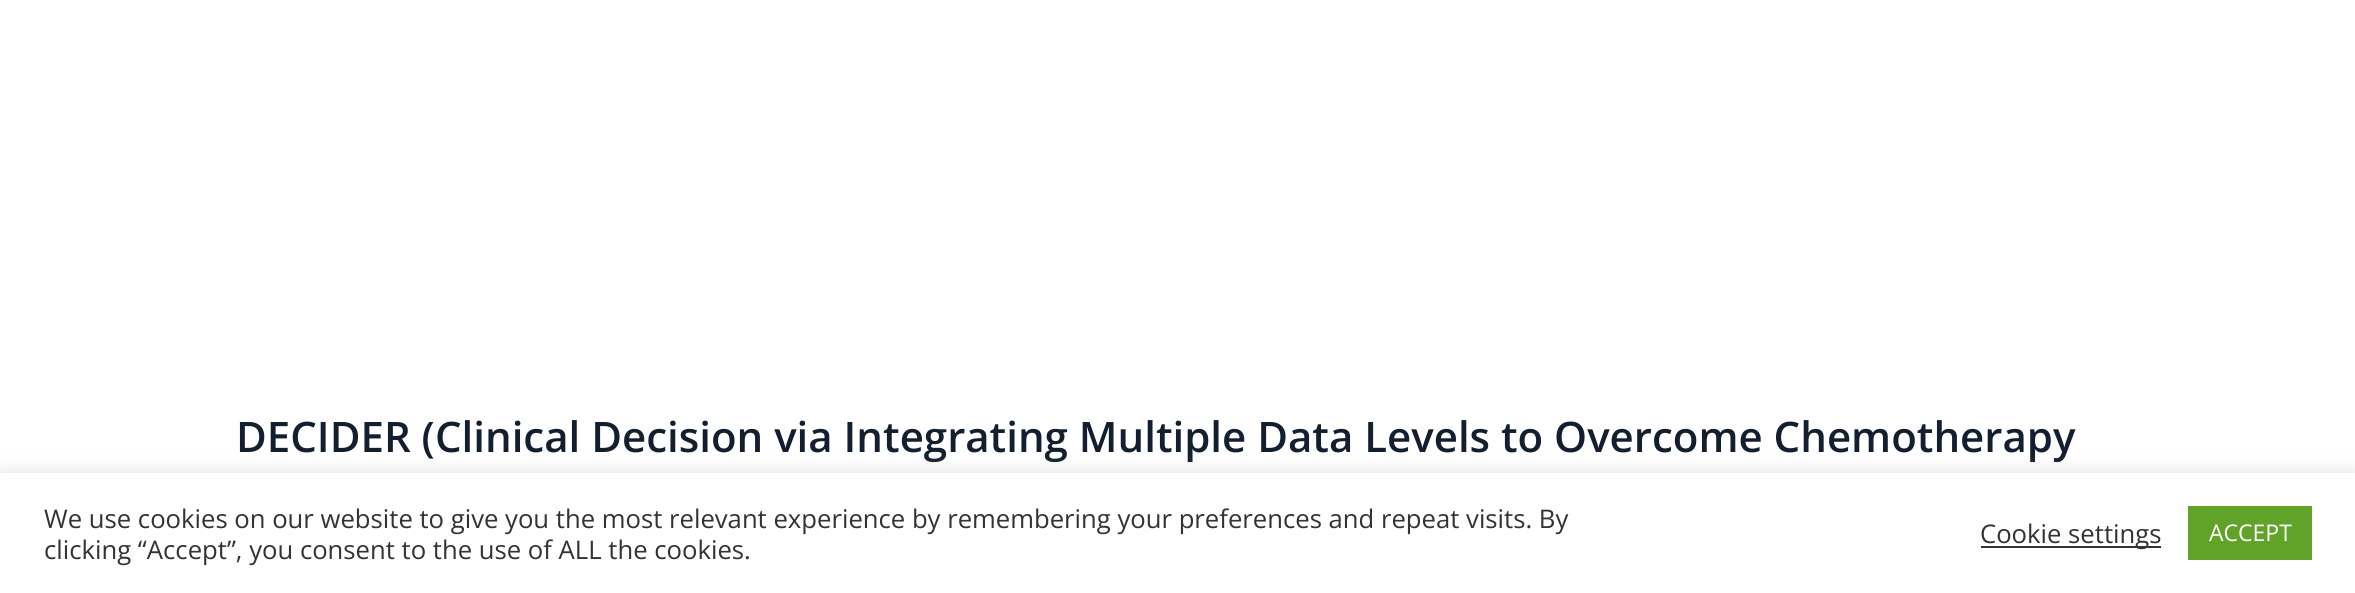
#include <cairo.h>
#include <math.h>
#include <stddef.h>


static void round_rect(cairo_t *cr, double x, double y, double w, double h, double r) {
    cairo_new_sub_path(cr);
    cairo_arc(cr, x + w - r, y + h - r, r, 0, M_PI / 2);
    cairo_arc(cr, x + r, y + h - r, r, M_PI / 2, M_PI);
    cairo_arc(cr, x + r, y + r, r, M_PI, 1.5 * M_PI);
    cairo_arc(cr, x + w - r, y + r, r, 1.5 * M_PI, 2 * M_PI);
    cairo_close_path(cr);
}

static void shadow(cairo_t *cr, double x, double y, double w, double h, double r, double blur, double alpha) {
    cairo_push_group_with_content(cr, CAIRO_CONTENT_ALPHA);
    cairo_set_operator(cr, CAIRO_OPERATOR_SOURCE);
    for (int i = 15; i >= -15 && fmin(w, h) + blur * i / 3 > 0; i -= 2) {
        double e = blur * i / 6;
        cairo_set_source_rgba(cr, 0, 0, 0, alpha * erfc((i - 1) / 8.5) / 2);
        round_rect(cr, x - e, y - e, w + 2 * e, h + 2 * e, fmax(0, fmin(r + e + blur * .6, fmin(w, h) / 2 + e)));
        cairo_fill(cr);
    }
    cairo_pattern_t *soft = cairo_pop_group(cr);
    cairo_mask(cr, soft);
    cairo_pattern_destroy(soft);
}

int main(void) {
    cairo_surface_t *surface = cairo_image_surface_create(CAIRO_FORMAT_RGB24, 2355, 593);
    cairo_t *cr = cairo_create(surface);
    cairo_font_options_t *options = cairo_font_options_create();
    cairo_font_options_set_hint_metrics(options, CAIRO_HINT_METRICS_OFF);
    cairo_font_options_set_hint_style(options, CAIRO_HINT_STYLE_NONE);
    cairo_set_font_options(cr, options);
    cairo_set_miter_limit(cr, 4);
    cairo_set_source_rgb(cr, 1, 1, 1);
    cairo_paint(cr);
    cairo_select_font_face(cr, "Open Sans SemiBold", CAIRO_FONT_SLANT_NORMAL, CAIRO_FONT_WEIGHT_NORMAL);
    cairo_set_font_size(cr, 42);
    cairo_set_source_rgb(cr, 0.075, 0.122, 0.184);
    cairo_move_to(cr, 236, 452);
    cairo_show_text(cr, "DECIDER (Clinical Decision via Integrating Multiple Data Levels to Overcome Chemotherapy");
    cairo_set_source_rgb(cr, 0.675, 0.671, 0.671);
    shadow(cr, 0, 471, 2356, 121, 0, 9, 0.3);
    cairo_set_source_rgb(cr, 1, 1, 1);
    cairo_rectangle(cr, 0, 473, 2355, 120);
    cairo_fill(cr);
    cairo_select_font_face(cr, "Open Sans", CAIRO_FONT_SLANT_NORMAL, CAIRO_FONT_WEIGHT_NORMAL);
    cairo_set_font_size(cr, 25.67);
    cairo_set_source_rgb(cr, 0.2, 0.2, 0.2);
    cairo_move_to(cr, 44, 528);
    cairo_show_text(cr, "We use cookies on our website to give you the most relevant experience by remembering your preferences and repeat visits. By");
    cairo_move_to(cr, 44, 559);
    cairo_show_text(cr, "clicking “Accept”, you consent to the use of ALL the cookies.");
    cairo_rectangle(cr, 1981, 546, 180, 2);
    cairo_fill(cr);
    cairo_move_to(cr, 1980, 543);
    cairo_show_text(cr, "Cookie settings");
    cairo_set_source_rgb(cr, 0.38, 0.635, 0.161);
    cairo_rectangle(cr, 2188, 506, 124, 54);
    cairo_fill(cr);
    cairo_set_font_size(cr, 23);
    cairo_set_source_rgb(cr, 1, 1, 1);
    cairo_move_to(cr, 2209, 541);
    cairo_show_text(cr, "ACCEPT");
    cairo_surface_write_to_png(surface, "page.png");
    cairo_font_options_destroy(options);
    cairo_destroy(cr);
    cairo_surface_destroy(surface);
    return 0;
}
